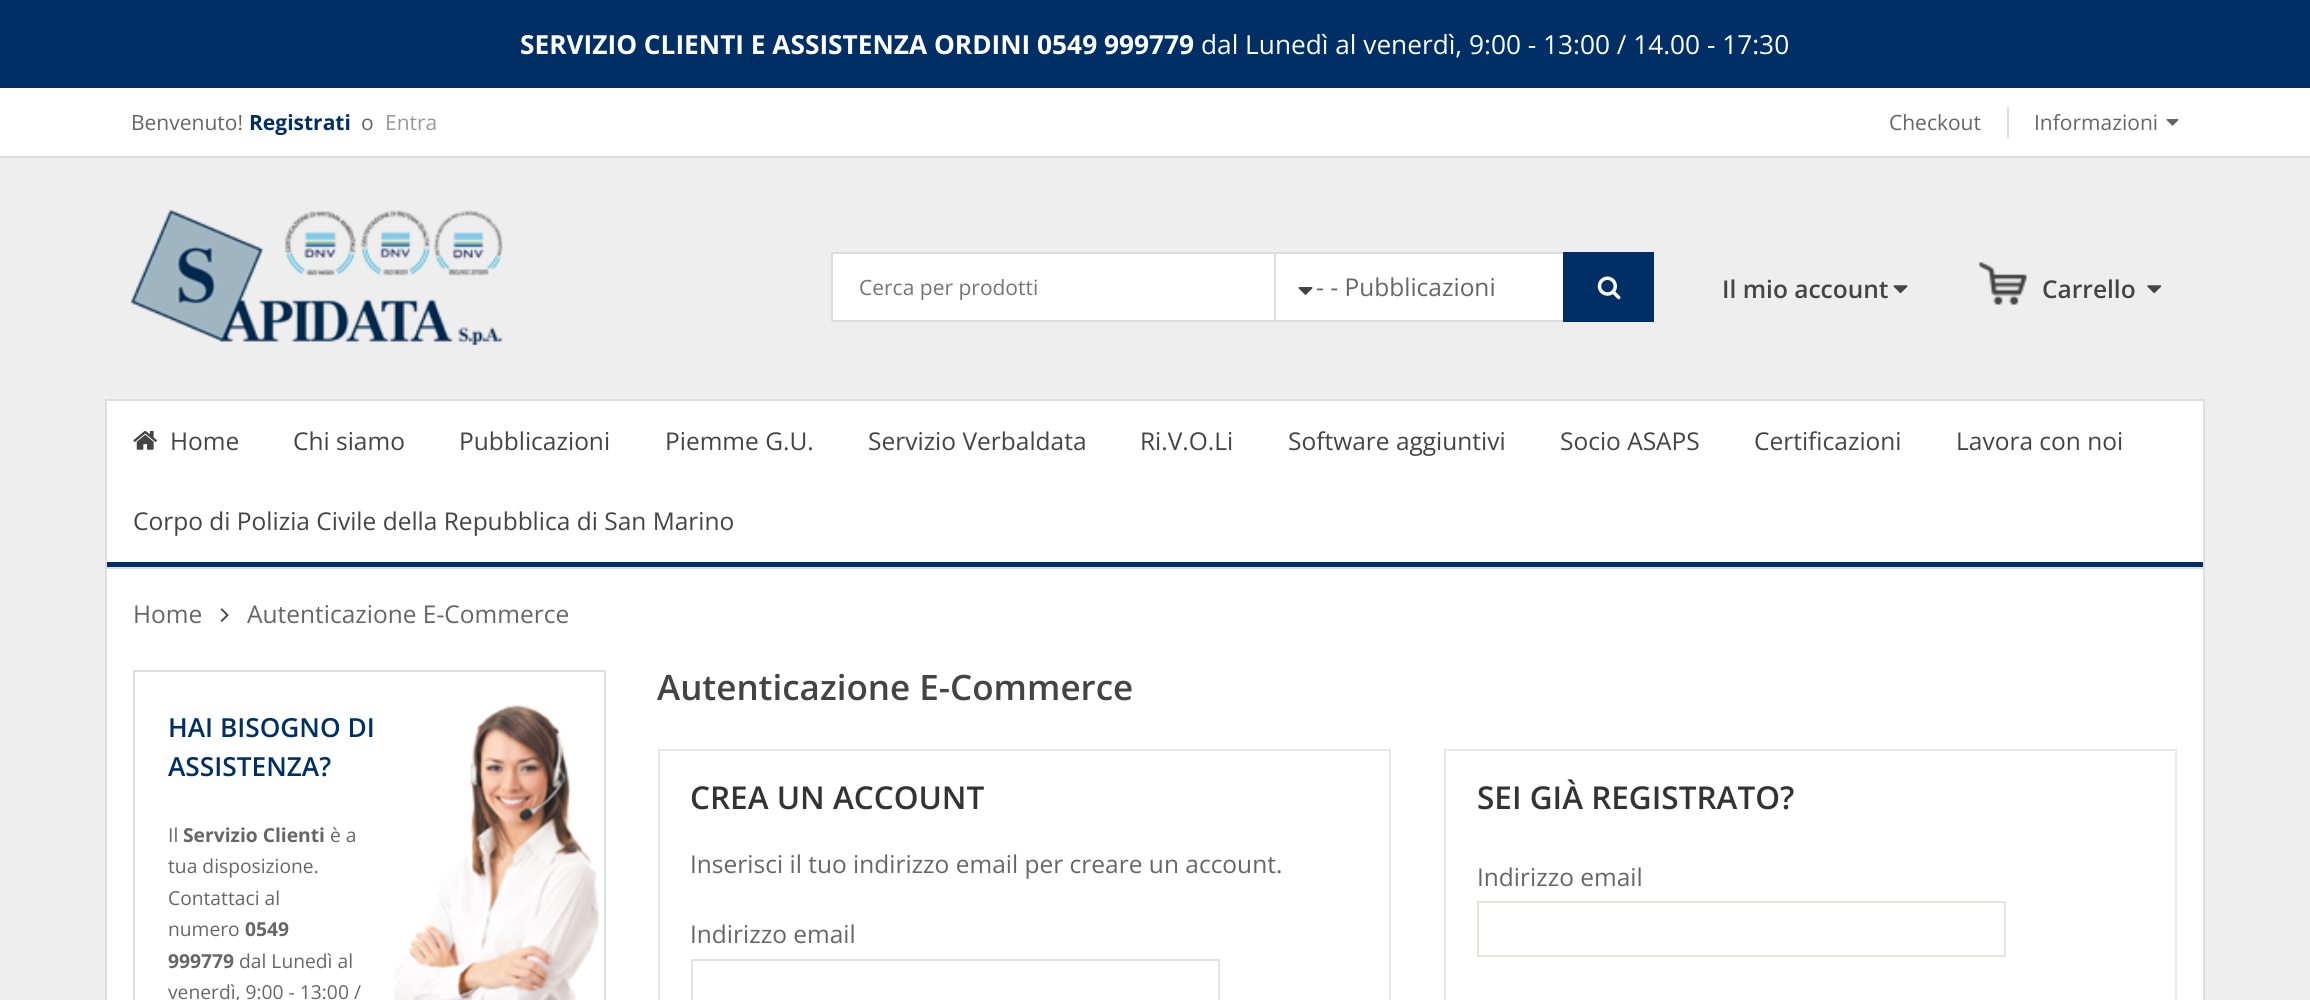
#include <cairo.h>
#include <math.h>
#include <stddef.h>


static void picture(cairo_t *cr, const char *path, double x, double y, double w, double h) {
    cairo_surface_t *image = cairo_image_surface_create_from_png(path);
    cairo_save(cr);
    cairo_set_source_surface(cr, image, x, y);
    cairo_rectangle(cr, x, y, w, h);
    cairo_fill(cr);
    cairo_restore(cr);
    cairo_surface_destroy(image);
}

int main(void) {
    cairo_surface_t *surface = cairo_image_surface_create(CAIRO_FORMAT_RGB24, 2310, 1000);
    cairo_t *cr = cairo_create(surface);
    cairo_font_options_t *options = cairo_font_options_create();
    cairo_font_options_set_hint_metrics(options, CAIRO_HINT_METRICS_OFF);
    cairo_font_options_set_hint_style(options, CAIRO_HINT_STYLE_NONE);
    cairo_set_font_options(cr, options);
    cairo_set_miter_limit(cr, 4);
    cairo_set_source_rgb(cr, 0.933, 0.933, 0.933);
    cairo_paint(cr);
    cairo_set_source_rgb(cr, 0, 0.184, 0.4);
    cairo_rectangle(cr, 0, 0, 2310, 88);
    cairo_fill(cr);
    cairo_select_font_face(cr, "Open Sans", CAIRO_FONT_SLANT_NORMAL, CAIRO_FONT_WEIGHT_BOLD);
    cairo_set_font_size(cr, 26.25);
    cairo_set_source_rgb(cr, 1, 1, 1);
    cairo_move_to(cr, 520, 54);
    cairo_show_text(cr, "SERVIZIO CLIENTI E ASSISTENZA ORDINI 0549 999779");
    cairo_select_font_face(cr, "Open Sans", CAIRO_FONT_SLANT_NORMAL, CAIRO_FONT_WEIGHT_NORMAL);
    cairo_move_to(cr, 1201, 54);
    cairo_show_text(cr, "dal Lunedì al venerdì, 9:00 - 13:00 / 14.00 - 17:30");
    cairo_rectangle(cr, 0, 88, 2310, 68);
    cairo_fill(cr);
    cairo_set_source_rgb(cr, 0.867, 0.867, 0.867);
    cairo_rectangle(cr, 0, 156, 2310, 2);
    cairo_fill(cr);
    cairo_set_font_size(cr, 21);
    cairo_set_source_rgb(cr, 0.4, 0.4, 0.4);
    cairo_move_to(cr, 131, 130);
    cairo_show_text(cr, "Benvenuto!");
    cairo_select_font_face(cr, "Open Sans", CAIRO_FONT_SLANT_NORMAL, CAIRO_FONT_WEIGHT_BOLD);
    cairo_set_source_rgb(cr, 0, 0.184, 0.4);
    cairo_move_to(cr, 249, 130);
    cairo_show_text(cr, "Registrati");
    cairo_select_font_face(cr, "Open Sans", CAIRO_FONT_SLANT_NORMAL, CAIRO_FONT_WEIGHT_NORMAL);
    cairo_set_source_rgb(cr, 0.4, 0.4, 0.4);
    cairo_move_to(cr, 361, 130);
    cairo_show_text(cr, "o");
    cairo_set_source_rgb(cr, 0.6, 0.6, 0.6);
    cairo_move_to(cr, 385, 130);
    cairo_show_text(cr, "Entra");
    cairo_set_source_rgb(cr, 0.4, 0.4, 0.4);
    cairo_move_to(cr, 1889, 130);
    cairo_show_text(cr, "Checkout");
    cairo_set_source_rgb(cr, 0.867, 0.867, 0.867);
    cairo_rectangle(cr, 2007, 107, 2, 31);
    cairo_fill(cr);
    cairo_set_source_rgb(cr, 0.4, 0.4, 0.4);
    cairo_move_to(cr, 2034, 130);
    cairo_show_text(cr, "Informazioni");
    picture(cr, "img1.png", 2166, 119, 13, 7);
    picture(cr, "img2.png", 131, 210, 372, 135);
    cairo_set_source_rgb(cr, 1, 1, 1);
    cairo_rectangle(cr, 832, 253, 443, 68);
    cairo_fill_preserve(cr);
    cairo_set_source_rgb(cr, 0.867, 0.867, 0.867);
    cairo_stroke(cr);
    cairo_set_source_rgb(cr, 0.459, 0.459, 0.459);
    cairo_move_to(cr, 859, 295);
    cairo_show_text(cr, "Cerca per prodotti");
    cairo_set_source_rgb(cr, 1, 1, 1);
    cairo_rectangle(cr, 1276, 254, 287, 66);
    cairo_fill(cr);
    picture(cr, "img3.png", 1298, 287, 15, 8);
    cairo_set_source_rgb(cr, 0.867, 0.867, 0.867);
    cairo_rectangle(cr, 1276, 252, 287, 2);
    cairo_fill(cr);
    cairo_rectangle(cr, 1276, 320, 287, 2);
    cairo_fill(cr);
    cairo_set_font_size(cr, 24.5);
    cairo_set_source_rgb(cr, 0.4, 0.4, 0.4);
    cairo_move_to(cr, 1316, 296);
    cairo_show_text(cr, "- - Pubblicazioni");
    cairo_set_source_rgb(cr, 0, 0.184, 0.4);
    cairo_rectangle(cr, 1563, 252, 91, 70);
    cairo_fill(cr);
    picture(cr, "img4.png", 1597, 276, 24, 24);
    cairo_select_font_face(cr, "Open Sans SemiBold", CAIRO_FONT_SLANT_NORMAL, CAIRO_FONT_WEIGHT_NORMAL);
    cairo_set_source_rgb(cr, 0.267, 0.267, 0.267);
    cairo_move_to(cr, 1722, 298);
    cairo_show_text(cr, "Il mio account");
    picture(cr, "img5.png", 1893, 285, 15, 9);
    picture(cr, "img6.png", 1979, 262, 48, 43);
    cairo_move_to(cr, 2042, 298);
    cairo_show_text(cr, "Carrello");
    picture(cr, "img7.png", 2147, 285, 15, 9);
    cairo_rectangle(cr, 106, 400, 2098, 168);
    cairo_set_source_rgb(cr, 0.867, 0.867, 0.867);
    cairo_stroke(cr);
    cairo_set_source_rgb(cr, 1, 1, 1);
    cairo_rectangle(cr, 107, 401, 2096, 161);
    cairo_fill(cr);
    cairo_set_source_rgb(cr, 0, 0.184, 0.4);
    cairo_rectangle(cr, 107, 562, 2096, 5);
    cairo_fill(cr);
    picture(cr, "img8.png", 133, 431, 24, 19);
    cairo_select_font_face(cr, "Open Sans", CAIRO_FONT_SLANT_NORMAL, CAIRO_FONT_WEIGHT_NORMAL);
    cairo_set_source_rgb(cr, 0.267, 0.267, 0.267);
    cairo_move_to(cr, 170, 450);
    cairo_show_text(cr, "Home");
    cairo_move_to(cr, 293, 450);
    cairo_show_text(cr, "Chi siamo");
    cairo_move_to(cr, 459, 450);
    cairo_show_text(cr, "Pubblicazioni");
    cairo_move_to(cr, 665, 450);
    cairo_show_text(cr, "Piemme G.U.");
    cairo_move_to(cr, 868, 450);
    cairo_show_text(cr, "Servizio Verbaldata");
    cairo_move_to(cr, 1140, 450);
    cairo_show_text(cr, "Ri.V.O.Li");
    cairo_move_to(cr, 1288, 450);
    cairo_show_text(cr, "Software aggiuntivi");
    cairo_move_to(cr, 1560, 450);
    cairo_show_text(cr, "Socio ASAPS");
    cairo_move_to(cr, 1754, 450);
    cairo_show_text(cr, "Certificazioni");
    cairo_move_to(cr, 1956, 450);
    cairo_show_text(cr, "Lavora con noi");
    cairo_move_to(cr, 133, 530);
    cairo_show_text(cr, "Corpo di Polizia Civile della Repubblica di San Marino");
    cairo_set_source_rgb(cr, 1, 1, 1);
    cairo_rectangle(cr, 107, 569, 2096, 431);
    cairo_fill(cr);
    cairo_set_source_rgb(cr, 0.867, 0.867, 0.867);
    cairo_rectangle(cr, 2203, 569, 2, 431);
    cairo_fill(cr);
    cairo_rectangle(cr, 105, 569, 2, 431);
    cairo_fill(cr);
    cairo_set_source_rgb(cr, 0.4, 0.4, 0.4);
    cairo_move_to(cr, 133, 623);
    cairo_show_text(cr, "Home");
    picture(cr, "img9.png", 220, 608, 9, 14);
    cairo_move_to(cr, 247, 623);
    cairo_show_text(cr, "Autenticazione E-Commerce");
    picture(cr, "img10.png", 393, 704, 207, 296);
    cairo_rectangle(cr, 134, 671, 471, 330);
    cairo_set_source_rgb(cr, 0.867, 0.867, 0.867);
    cairo_stroke(cr);
    cairo_select_font_face(cr, "Open Sans SemiBold", CAIRO_FONT_SLANT_NORMAL, CAIRO_FONT_WEIGHT_NORMAL);
    cairo_set_font_size(cr, 26.25);
    cairo_set_source_rgb(cr, 0, 0.184, 0.4);
    cairo_move_to(cr, 168, 737);
    cairo_show_text(cr, "HAI BISOGNO DI");
    cairo_move_to(cr, 168, 776);
    cairo_show_text(cr, "ASSISTENZA?");
    cairo_select_font_face(cr, "Open Sans", CAIRO_FONT_SLANT_NORMAL, CAIRO_FONT_WEIGHT_NORMAL);
    cairo_set_font_size(cr, 19.25);
    cairo_set_source_rgb(cr, 0.4, 0.4, 0.4);
    cairo_move_to(cr, 168, 842);
    cairo_show_text(cr, "Il");
    cairo_select_font_face(cr, "Open Sans", CAIRO_FONT_SLANT_NORMAL, CAIRO_FONT_WEIGHT_BOLD);
    cairo_move_to(cr, 183, 842);
    cairo_show_text(cr, "Servizio Clienti");
    cairo_select_font_face(cr, "Open Sans", CAIRO_FONT_SLANT_NORMAL, CAIRO_FONT_WEIGHT_NORMAL);
    cairo_move_to(cr, 330, 842);
    cairo_show_text(cr, "è a");
    cairo_move_to(cr, 168, 873);
    cairo_show_text(cr, "tua disposizione.");
    cairo_move_to(cr, 168, 905);
    cairo_show_text(cr, "Contattaci al");
    cairo_move_to(cr, 168, 936);
    cairo_show_text(cr, "numero");
    cairo_select_font_face(cr, "Open Sans", CAIRO_FONT_SLANT_NORMAL, CAIRO_FONT_WEIGHT_BOLD);
    cairo_move_to(cr, 245, 936);
    cairo_show_text(cr, "0549");
    cairo_move_to(cr, 168, 968);
    cairo_show_text(cr, "999779");
    cairo_select_font_face(cr, "Open Sans", CAIRO_FONT_SLANT_NORMAL, CAIRO_FONT_WEIGHT_NORMAL);
    cairo_move_to(cr, 239, 968);
    cairo_show_text(cr, "dal Lunedì al");
    cairo_move_to(cr, 168, 999);
    cairo_show_text(cr, "venerdì, 9:00 - 13:00 /");
    cairo_select_font_face(cr, "Open Sans SemiBold", CAIRO_FONT_SLANT_NORMAL, CAIRO_FONT_WEIGHT_NORMAL);
    cairo_set_font_size(cr, 35);
    cairo_set_source_rgb(cr, 0.267, 0.267, 0.267);
    cairo_move_to(cr, 657, 700);
    cairo_show_text(cr, "Autenticazione E-Commerce");
    cairo_rectangle(cr, 659, 750, 731, 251);
    cairo_set_source_rgb(cr, 0.906, 0.906, 0.906);
    cairo_stroke(cr);
    cairo_set_font_size(cr, 31.5);
    cairo_set_source_rgb(cr, 0.2, 0.2, 0.2);
    cairo_move_to(cr, 690, 809);
    cairo_show_text(cr, "CREA UN ACCOUNT");
    cairo_select_font_face(cr, "Open Sans", CAIRO_FONT_SLANT_NORMAL, CAIRO_FONT_WEIGHT_NORMAL);
    cairo_set_font_size(cr, 24.5);
    cairo_set_source_rgb(cr, 0.4, 0.4, 0.4);
    cairo_move_to(cr, 690, 873);
    cairo_show_text(cr, "Inserisci il tuo indirizzo email per creare un account.");
    cairo_move_to(cr, 690, 943);
    cairo_show_text(cr, "Indirizzo email");
    cairo_rectangle(cr, 692, 960, 527, 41);
    cairo_set_source_rgb(cr, 0.906, 0.894, 0.871);
    cairo_stroke(cr);
    cairo_rectangle(cr, 1445, 750, 731, 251);
    cairo_set_source_rgb(cr, 0.906, 0.906, 0.906);
    cairo_stroke(cr);
    cairo_select_font_face(cr, "Open Sans SemiBold", CAIRO_FONT_SLANT_NORMAL, CAIRO_FONT_WEIGHT_NORMAL);
    cairo_set_font_size(cr, 31.5);
    cairo_set_source_rgb(cr, 0.2, 0.2, 0.2);
    cairo_move_to(cr, 1477, 809);
    cairo_show_text(cr, "SEI GIÀ REGISTRATO?");
    cairo_select_font_face(cr, "Open Sans", CAIRO_FONT_SLANT_NORMAL, CAIRO_FONT_WEIGHT_NORMAL);
    cairo_set_font_size(cr, 24.5);
    cairo_set_source_rgb(cr, 0.4, 0.4, 0.4);
    cairo_move_to(cr, 1477, 886);
    cairo_show_text(cr, "Indirizzo email");
    cairo_rectangle(cr, 1478, 902, 527, 54);
    cairo_set_source_rgb(cr, 0.906, 0.894, 0.871);
    cairo_stroke(cr);
    cairo_surface_write_to_png(surface, "page.png");
    cairo_font_options_destroy(options);
    cairo_destroy(cr);
    cairo_surface_destroy(surface);
    return 0;
}
